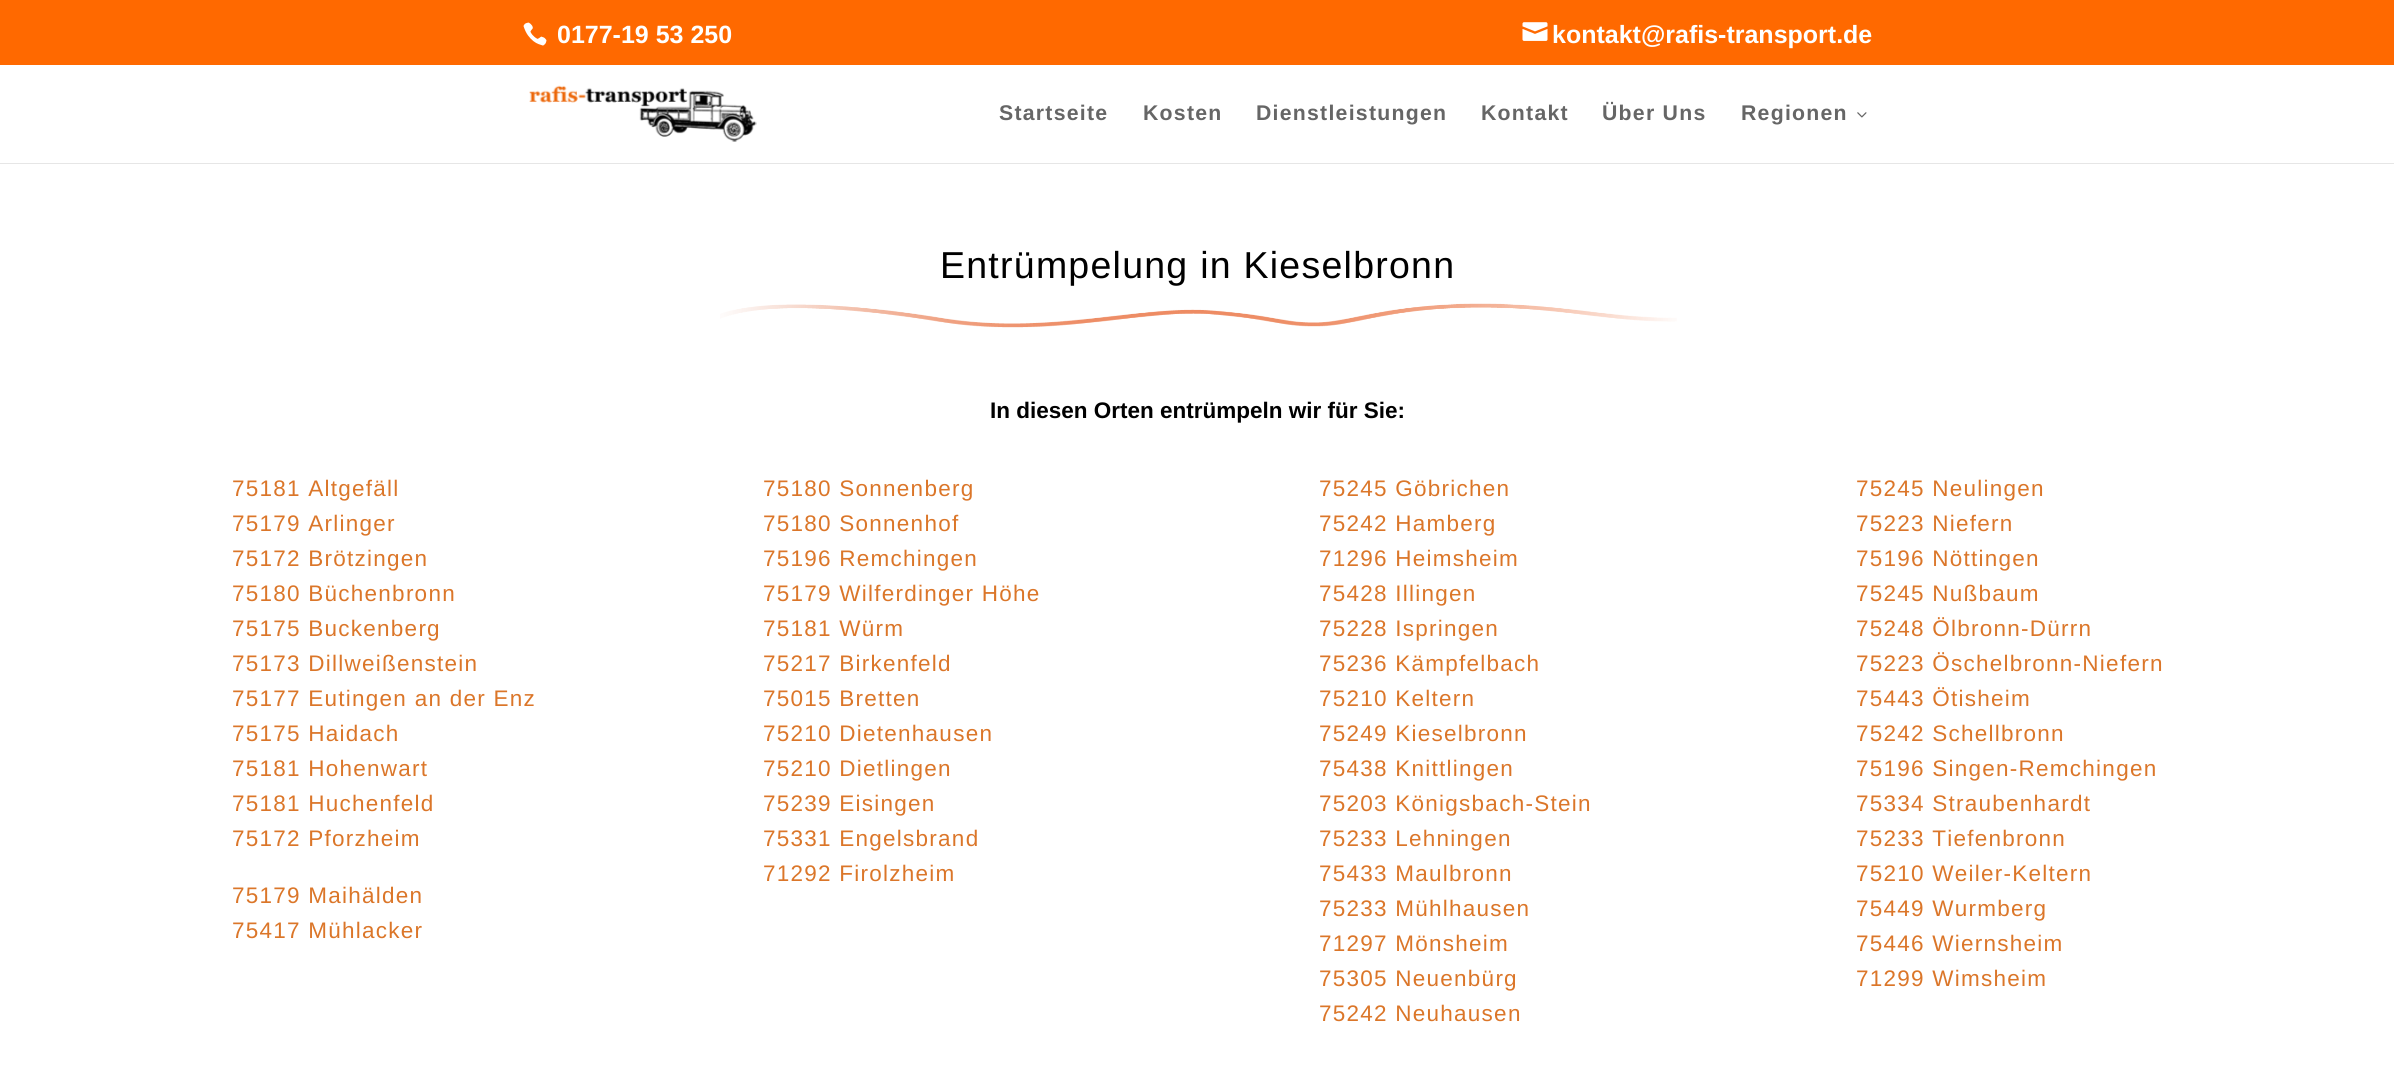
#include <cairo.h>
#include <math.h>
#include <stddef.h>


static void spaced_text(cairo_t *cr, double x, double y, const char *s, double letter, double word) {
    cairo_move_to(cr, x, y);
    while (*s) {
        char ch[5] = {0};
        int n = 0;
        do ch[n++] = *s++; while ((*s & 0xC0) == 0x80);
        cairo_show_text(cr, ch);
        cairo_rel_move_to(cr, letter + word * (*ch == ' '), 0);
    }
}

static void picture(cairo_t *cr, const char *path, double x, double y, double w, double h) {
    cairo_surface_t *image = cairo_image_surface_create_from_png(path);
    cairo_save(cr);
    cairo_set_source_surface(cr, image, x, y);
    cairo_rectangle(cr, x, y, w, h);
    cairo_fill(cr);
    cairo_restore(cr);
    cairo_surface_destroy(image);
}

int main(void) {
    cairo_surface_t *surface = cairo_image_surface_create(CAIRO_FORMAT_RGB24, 2394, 1065);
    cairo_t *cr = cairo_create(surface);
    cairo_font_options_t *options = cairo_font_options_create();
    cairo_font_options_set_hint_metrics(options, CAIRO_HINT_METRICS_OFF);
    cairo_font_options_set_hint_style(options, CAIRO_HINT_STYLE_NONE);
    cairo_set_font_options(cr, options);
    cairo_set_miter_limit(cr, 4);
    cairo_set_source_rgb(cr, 1, 1, 1);
    cairo_paint(cr);
    cairo_set_source_rgb(cr, 1, 0.412, 0);
    cairo_rectangle(cr, 0, 0, 2394, 65);
    cairo_fill(cr);
    picture(cr, "img1.png", 523, 22, 24, 24);
    cairo_select_font_face(cr, "Liberation Sans", CAIRO_FONT_SLANT_NORMAL, CAIRO_FONT_WEIGHT_BOLD);
    cairo_set_font_size(cr, 25);
    cairo_set_source_rgb(cr, 1, 1, 1);
    cairo_move_to(cr, 557, 43);
    cairo_show_text(cr, "0177-19 53 250");
    picture(cr, "img2.png", 1522, 22, 26, 19);
    cairo_move_to(cr, 1552, 43);
    cairo_show_text(cr, "kontakt@rafis-transport.de");
    cairo_set_source_rgb(cr, 0.902, 0.902, 0.902);
    cairo_rectangle(cr, 0, 163, 2394, 1);
    cairo_fill(cr);
    picture(cr, "img3.png", 529, 85, 228, 57);
    cairo_set_font_size(cr, 21.25);
    cairo_set_source_rgb(cr, 0.4, 0.4, 0.4);
    spaced_text(cr, 999, 120, "Startseite", 1.25, 0);
    spaced_text(cr, 1143, 120, "Kosten", 1.25, 0);
    spaced_text(cr, 1256, 120, "Dienstleistungen", 1.25, 0);
    spaced_text(cr, 1481, 120, "Kontakt", 1.25, 0);
    spaced_text(cr, 1602, 120, "Über Uns", 1.25, 0);
    spaced_text(cr, 1741, 120, "Regionen", 1.25, 0);
    picture(cr, "img4.png", 1857, 112, 10, 6);
    cairo_select_font_face(cr, "Liberation Sans", CAIRO_FONT_SLANT_NORMAL, CAIRO_FONT_WEIGHT_NORMAL);
    cairo_set_font_size(cr, 37.5);
    cairo_set_source_rgb(cr, 0, 0, 0);
    spaced_text(cr, 940, 278, "Entrümpelung in Kieselbronn", 1.25, 0);
    picture(cr, "img5.png", 720, 303, 957, 25);
    cairo_select_font_face(cr, "Liberation Sans", CAIRO_FONT_SLANT_NORMAL, CAIRO_FONT_WEIGHT_BOLD);
    cairo_set_font_size(cr, 22.5);
    cairo_move_to(cr, 990, 418);
    cairo_show_text(cr, "In diesen Orten entrümpeln wir für Sie:");
    cairo_select_font_face(cr, "Liberation Sans", CAIRO_FONT_SLANT_NORMAL, CAIRO_FONT_WEIGHT_NORMAL);
    cairo_set_source_rgb(cr, 0.859, 0.463, 0.161);
    spaced_text(cr, 232, 496, "75181 Altgefäll", 1.25, 0);
    spaced_text(cr, 232, 531, "75179 Arlinger", 1.25, 0);
    spaced_text(cr, 232, 566, "75172 Brötzingen", 1.25, 0);
    spaced_text(cr, 232, 601, "75180 Büchenbronn", 1.25, 0);
    spaced_text(cr, 232, 636, "75175 Buckenberg", 1.25, 0);
    spaced_text(cr, 232, 671, "75173 Dillweißenstein", 1.25, 0);
    spaced_text(cr, 232, 706, "75177 Eutingen an der Enz", 1.25, 0);
    spaced_text(cr, 232, 741, "75175 Haidach", 1.25, 0);
    spaced_text(cr, 232, 776, "75181 Hohenwart", 1.25, 0);
    spaced_text(cr, 232, 811, "75181 Huchenfeld", 1.25, 0);
    spaced_text(cr, 232, 846, "75172 Pforzheim", 1.25, 0);
    spaced_text(cr, 232, 903, "75179 Maihälden", 1.25, 0);
    spaced_text(cr, 232, 938, "75417 Mühlacker", 1.25, 0);
    spaced_text(cr, 763, 496, "75180 Sonnenberg", 1.25, 0);
    spaced_text(cr, 763, 531, "75180 Sonnenhof", 1.25, 0);
    spaced_text(cr, 763, 566, "75196 Remchingen", 1.25, 0);
    spaced_text(cr, 763, 601, "75179 Wilferdinger Höhe", 1.25, 0);
    spaced_text(cr, 763, 636, "75181 Würm", 1.25, 0);
    spaced_text(cr, 763, 671, "75217 Birkenfeld", 1.25, 0);
    spaced_text(cr, 763, 706, "75015 Bretten", 1.25, 0);
    spaced_text(cr, 763, 741, "75210 Dietenhausen", 1.25, 0);
    spaced_text(cr, 763, 776, "75210 Dietlingen", 1.25, 0);
    spaced_text(cr, 763, 811, "75239 Eisingen", 1.25, 0);
    spaced_text(cr, 763, 846, "75331 Engelsbrand", 1.25, 0);
    spaced_text(cr, 763, 881, "71292 Firolzheim", 1.25, 0);
    spaced_text(cr, 1319, 496, "75245 Göbrichen", 1.25, 0);
    spaced_text(cr, 1319, 531, "75242 Hamberg", 1.25, 0);
    spaced_text(cr, 1319, 566, "71296 Heimsheim", 1.25, 0);
    spaced_text(cr, 1319, 601, "75428 Illingen", 1.25, 0);
    spaced_text(cr, 1319, 636, "75228 Ispringen", 1.25, 0);
    spaced_text(cr, 1319, 671, "75236 Kämpfelbach", 1.25, 0);
    spaced_text(cr, 1319, 706, "75210 Keltern", 1.25, 0);
    spaced_text(cr, 1319, 741, "75249 Kieselbronn", 1.25, 0);
    spaced_text(cr, 1319, 776, "75438 Knittlingen", 1.25, 0);
    spaced_text(cr, 1319, 811, "75203 Königsbach-Stein", 1.25, 0);
    spaced_text(cr, 1319, 846, "75233 Lehningen", 1.25, 0);
    spaced_text(cr, 1319, 881, "75433 Maulbronn", 1.25, 0);
    spaced_text(cr, 1319, 916, "75233 Mühlhausen", 1.25, 0);
    spaced_text(cr, 1319, 951, "71297 Mönsheim", 1.25, 0);
    spaced_text(cr, 1319, 986, "75305 Neuenbürg", 1.25, 0);
    spaced_text(cr, 1319, 1021, "75242 Neuhausen", 1.25, 0);
    spaced_text(cr, 1856, 496, "75245 Neulingen", 1.25, 0);
    spaced_text(cr, 1856, 531, "75223 Niefern", 1.25, 0);
    spaced_text(cr, 1856, 566, "75196 Nöttingen", 1.25, 0);
    spaced_text(cr, 1856, 601, "75245 Nußbaum", 1.25, 0);
    spaced_text(cr, 1856, 636, "75248 Ölbronn-Dürrn", 1.25, 0);
    spaced_text(cr, 1856, 671, "75223 Öschelbronn-Niefern", 1.25, 0);
    spaced_text(cr, 1856, 706, "75443 Ötisheim", 1.25, 0);
    spaced_text(cr, 1856, 741, "75242 Schellbronn", 1.25, 0);
    spaced_text(cr, 1856, 776, "75196 Singen-Remchingen", 1.25, 0);
    spaced_text(cr, 1856, 811, "75334 Straubenhardt", 1.25, 0);
    spaced_text(cr, 1856, 846, "75233 Tiefenbronn", 1.25, 0);
    spaced_text(cr, 1856, 881, "75210 Weiler-Keltern", 1.25, 0);
    spaced_text(cr, 1856, 916, "75449 Wurmberg", 1.25, 0);
    spaced_text(cr, 1856, 951, "75446 Wiernsheim", 1.25, 0);
    spaced_text(cr, 1856, 986, "71299 Wimsheim", 1.25, 0);
    cairo_surface_write_to_png(surface, "page.png");
    cairo_font_options_destroy(options);
    cairo_destroy(cr);
    cairo_surface_destroy(surface);
    return 0;
}
